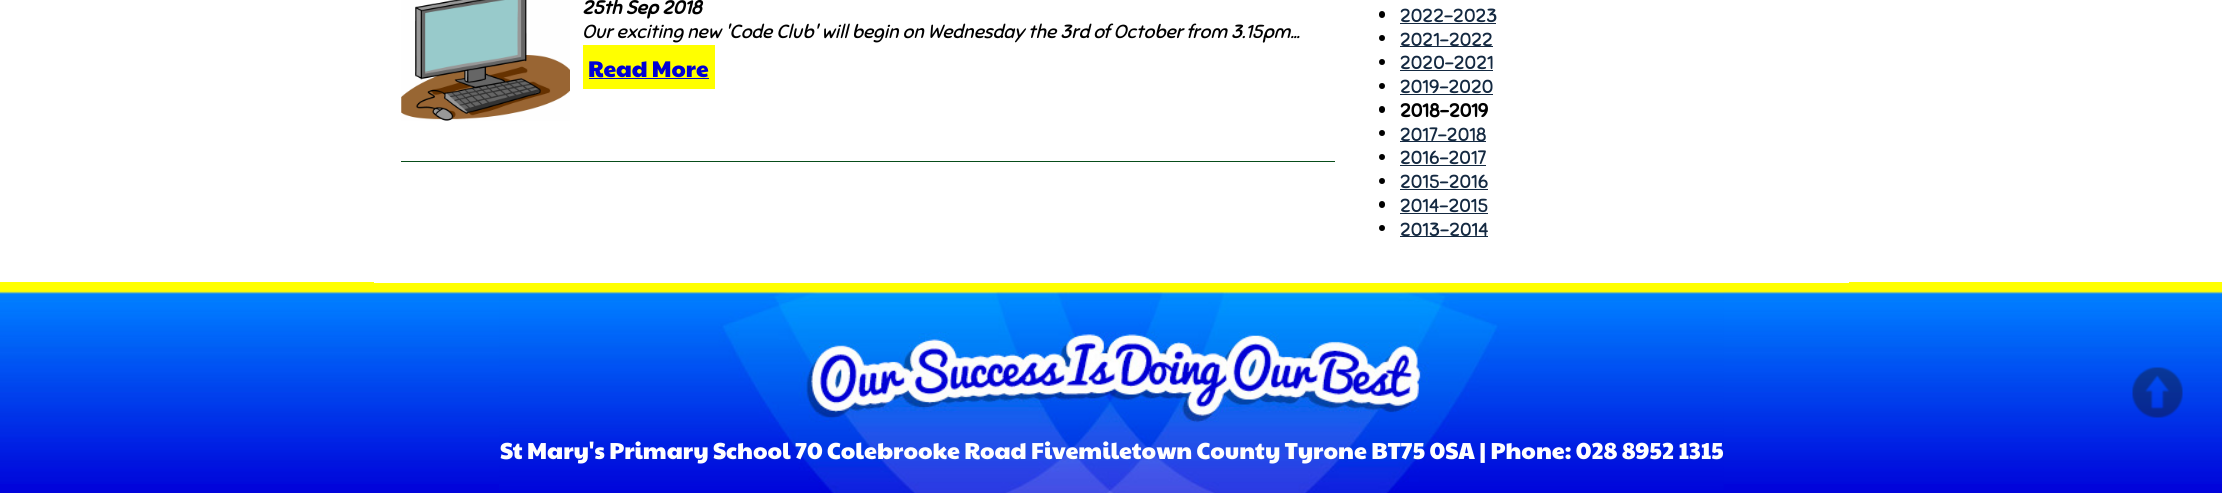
#include <cairo.h>
#include <math.h>
#include <stddef.h>


static void round_rect(cairo_t *cr, double x, double y, double w, double h, double r) {
    cairo_new_sub_path(cr);
    cairo_arc(cr, x + w - r, y + h - r, r, 0, M_PI / 2);
    cairo_arc(cr, x + r, y + h - r, r, M_PI / 2, M_PI);
    cairo_arc(cr, x + r, y + r, r, M_PI, 1.5 * M_PI);
    cairo_arc(cr, x + w - r, y + r, r, 1.5 * M_PI, 2 * M_PI);
    cairo_close_path(cr);
}

static void picture(cairo_t *cr, const char *path, double x, double y, double w, double h) {
    cairo_surface_t *image = cairo_image_surface_create_from_png(path);
    cairo_save(cr);
    cairo_set_source_surface(cr, image, x, y);
    cairo_rectangle(cr, x, y, w, h);
    cairo_fill(cr);
    cairo_restore(cr);
    cairo_surface_destroy(image);
}

int main(void) {
    cairo_surface_t *surface = cairo_image_surface_create(CAIRO_FORMAT_RGB24, 2222, 493);
    cairo_t *cr = cairo_create(surface);
    cairo_font_options_t *options = cairo_font_options_create();
    cairo_font_options_set_hint_metrics(options, CAIRO_HINT_METRICS_OFF);
    cairo_font_options_set_hint_style(options, CAIRO_HINT_STYLE_NONE);
    cairo_set_font_options(cr, options);
    cairo_set_miter_limit(cr, 4);
    cairo_set_source_rgb(cr, 1, 1, 1);
    cairo_paint(cr);
    picture(cr, "img2.png", 0, 282, 2222, 202);
    cairo_set_source_rgb(cr, 1, 1, 1);
    cairo_rectangle(cr, 374, 282, 1475, 1);
    cairo_fill(cr);
    cairo_set_source_rgb(cr, 0.035, 0.302, 0.102);
    cairo_rectangle(cr, 401, 161, 934, 1);
    cairo_fill(cr);
    picture(cr, "img1.png", 401, 0, 169, 121);
    cairo_select_font_face(cr, "Sniglet", CAIRO_FONT_SLANT_ITALIC, CAIRO_FONT_WEIGHT_BOLD);
    cairo_set_font_size(cr, 19);
    cairo_set_source_rgb(cr, 0, 0, 0);
    cairo_move_to(cr, 582, 14);
    cairo_show_text(cr, "25th Sep 2018");
    cairo_select_font_face(cr, "Sniglet", CAIRO_FONT_SLANT_ITALIC, CAIRO_FONT_WEIGHT_NORMAL);
    cairo_move_to(cr, 582, 38);
    cairo_show_text(cr, "Our exciting new 'Code Club' will begin on Wednesday the 3rd of October from 3.15pm...");
    cairo_set_source_rgb(cr, 1, 1, 0);
    cairo_rectangle(cr, 583, 45, 132, 44);
    cairo_fill(cr);
    cairo_select_font_face(cr, "Paytone One", CAIRO_FONT_SLANT_NORMAL, CAIRO_FONT_WEIGHT_NORMAL);
    cairo_set_font_size(cr, 22.75);
    cairo_set_source_rgb(cr, 0, 0, 0.831);
    cairo_move_to(cr, 588, 77);
    cairo_show_text(cr, "Read More");
    cairo_rectangle(cr, 589, 78, 120, 1);
    cairo_fill(cr);
    cairo_set_source_rgb(cr, 0, 0, 0);
    round_rect(cr, 1379, 11, 6, 7, 3);
    cairo_fill(cr);
    cairo_select_font_face(cr, "Sniglet", CAIRO_FONT_SLANT_NORMAL, CAIRO_FONT_WEIGHT_NORMAL);
    cairo_set_font_size(cr, 19);
    cairo_set_source_rgb(cr, 0.082, 0.161, 0.255);
    cairo_move_to(cr, 1400, 22);
    cairo_show_text(cr, "2022-2023");
    cairo_rectangle(cr, 1400, 23, 96, 1);
    cairo_fill(cr);
    cairo_set_source_rgb(cr, 0, 0, 0);
    cairo_arc(cr, 1382, 38, 3, 0, 2 * M_PI);
    cairo_fill(cr);
    cairo_set_source_rgb(cr, 0.082, 0.161, 0.255);
    cairo_rectangle(cr, 1400, 46, 93, 1);
    cairo_fill(cr);
    cairo_move_to(cr, 1400, 46);
    cairo_show_text(cr, "2021-2022");
    cairo_set_source_rgb(cr, 0, 0, 0);
    cairo_new_path(cr);
    cairo_arc(cr, 1382, 62, 3, 0, 2 * M_PI);
    cairo_fill(cr);
    cairo_set_source_rgb(cr, 0.082, 0.161, 0.255);
    cairo_move_to(cr, 1400, 69);
    cairo_show_text(cr, "2020-2021");
    cairo_rectangle(cr, 1400, 70, 93, 1);
    cairo_fill(cr);
    cairo_set_source_rgb(cr, 0, 0, 0);
    cairo_arc(cr, 1382, 86, 3, 0, 2 * M_PI);
    cairo_fill(cr);
    cairo_set_source_rgb(cr, 0.082, 0.161, 0.255);
    cairo_move_to(cr, 1400, 93);
    cairo_show_text(cr, "2019-2020");
    cairo_rectangle(cr, 1400, 94, 93, 1);
    cairo_fill(cr);
    cairo_set_source_rgb(cr, 0, 0, 0);
    round_rect(cr, 1379, 106, 6, 7, 3);
    cairo_fill(cr);
    cairo_select_font_face(cr, "Sniglet", CAIRO_FONT_SLANT_NORMAL, CAIRO_FONT_WEIGHT_BOLD);
    cairo_move_to(cr, 1400, 117);
    cairo_show_text(cr, "2018-2019");
    cairo_new_path(cr);
    cairo_arc(cr, 1382, 133, 3, 0, 2 * M_PI);
    cairo_fill(cr);
    cairo_set_source_rgb(cr, 0.082, 0.161, 0.255);
    cairo_rectangle(cr, 1400, 141, 86, 1);
    cairo_fill(cr);
    cairo_select_font_face(cr, "Sniglet", CAIRO_FONT_SLANT_NORMAL, CAIRO_FONT_WEIGHT_NORMAL);
    cairo_move_to(cr, 1400, 141);
    cairo_show_text(cr, "2017-2018");
    cairo_set_source_rgb(cr, 0, 0, 0);
    cairo_new_path(cr);
    cairo_arc(cr, 1382, 157, 3, 0, 2 * M_PI);
    cairo_fill(cr);
    cairo_set_source_rgb(cr, 0.082, 0.161, 0.255);
    cairo_move_to(cr, 1400, 164);
    cairo_show_text(cr, "2016-2017");
    cairo_rectangle(cr, 1400, 165, 86, 1);
    cairo_fill(cr);
    cairo_set_source_rgb(cr, 0, 0, 0);
    cairo_arc(cr, 1382, 181, 3, 0, 2 * M_PI);
    cairo_fill(cr);
    cairo_set_source_rgb(cr, 0.082, 0.161, 0.255);
    cairo_move_to(cr, 1400, 188);
    cairo_show_text(cr, "2015-2016");
    cairo_rectangle(cr, 1400, 189, 88, 1);
    cairo_fill(cr);
    cairo_set_source_rgb(cr, 0, 0, 0);
    round_rect(cr, 1379, 201, 6, 7, 3);
    cairo_fill(cr);
    cairo_set_source_rgb(cr, 0.082, 0.161, 0.255);
    cairo_move_to(cr, 1400, 212);
    cairo_show_text(cr, "2014-2015");
    cairo_rectangle(cr, 1400, 213, 88, 1);
    cairo_fill(cr);
    cairo_set_source_rgb(cr, 0, 0, 0);
    cairo_arc(cr, 1382, 228, 3, 0, 2 * M_PI);
    cairo_fill(cr);
    cairo_set_source_rgb(cr, 0.082, 0.161, 0.255);
    cairo_rectangle(cr, 1400, 236, 88, 1);
    cairo_fill(cr);
    cairo_move_to(cr, 1400, 236);
    cairo_show_text(cr, "2013-2014");
    cairo_set_source_rgb(cr, 0.004, 0.016, 0.859);
    cairo_rectangle(cr, 0, 484, 2222, 9);
    cairo_fill(cr);
    picture(cr, "img3.png", 2132, 367, 51, 51);
    picture(cr, "img4.png", 499, 283, 1225, 210);
    cairo_select_font_face(cr, "Paytone One", CAIRO_FONT_SLANT_NORMAL, CAIRO_FONT_WEIGHT_NORMAL);
    cairo_set_font_size(cr, 23.2);
    cairo_set_source_rgb(cr, 1, 1, 1);
    cairo_move_to(cr, 500, 459);
    cairo_show_text(cr, "St Mary's Primary School 70 Colebrooke Road Fivemiletown County Tyrone BT75 0SA | Phone: 028 8952 1315");
    cairo_surface_write_to_png(surface, "page.png");
    cairo_font_options_destroy(options);
    cairo_destroy(cr);
    cairo_surface_destroy(surface);
    return 0;
}
